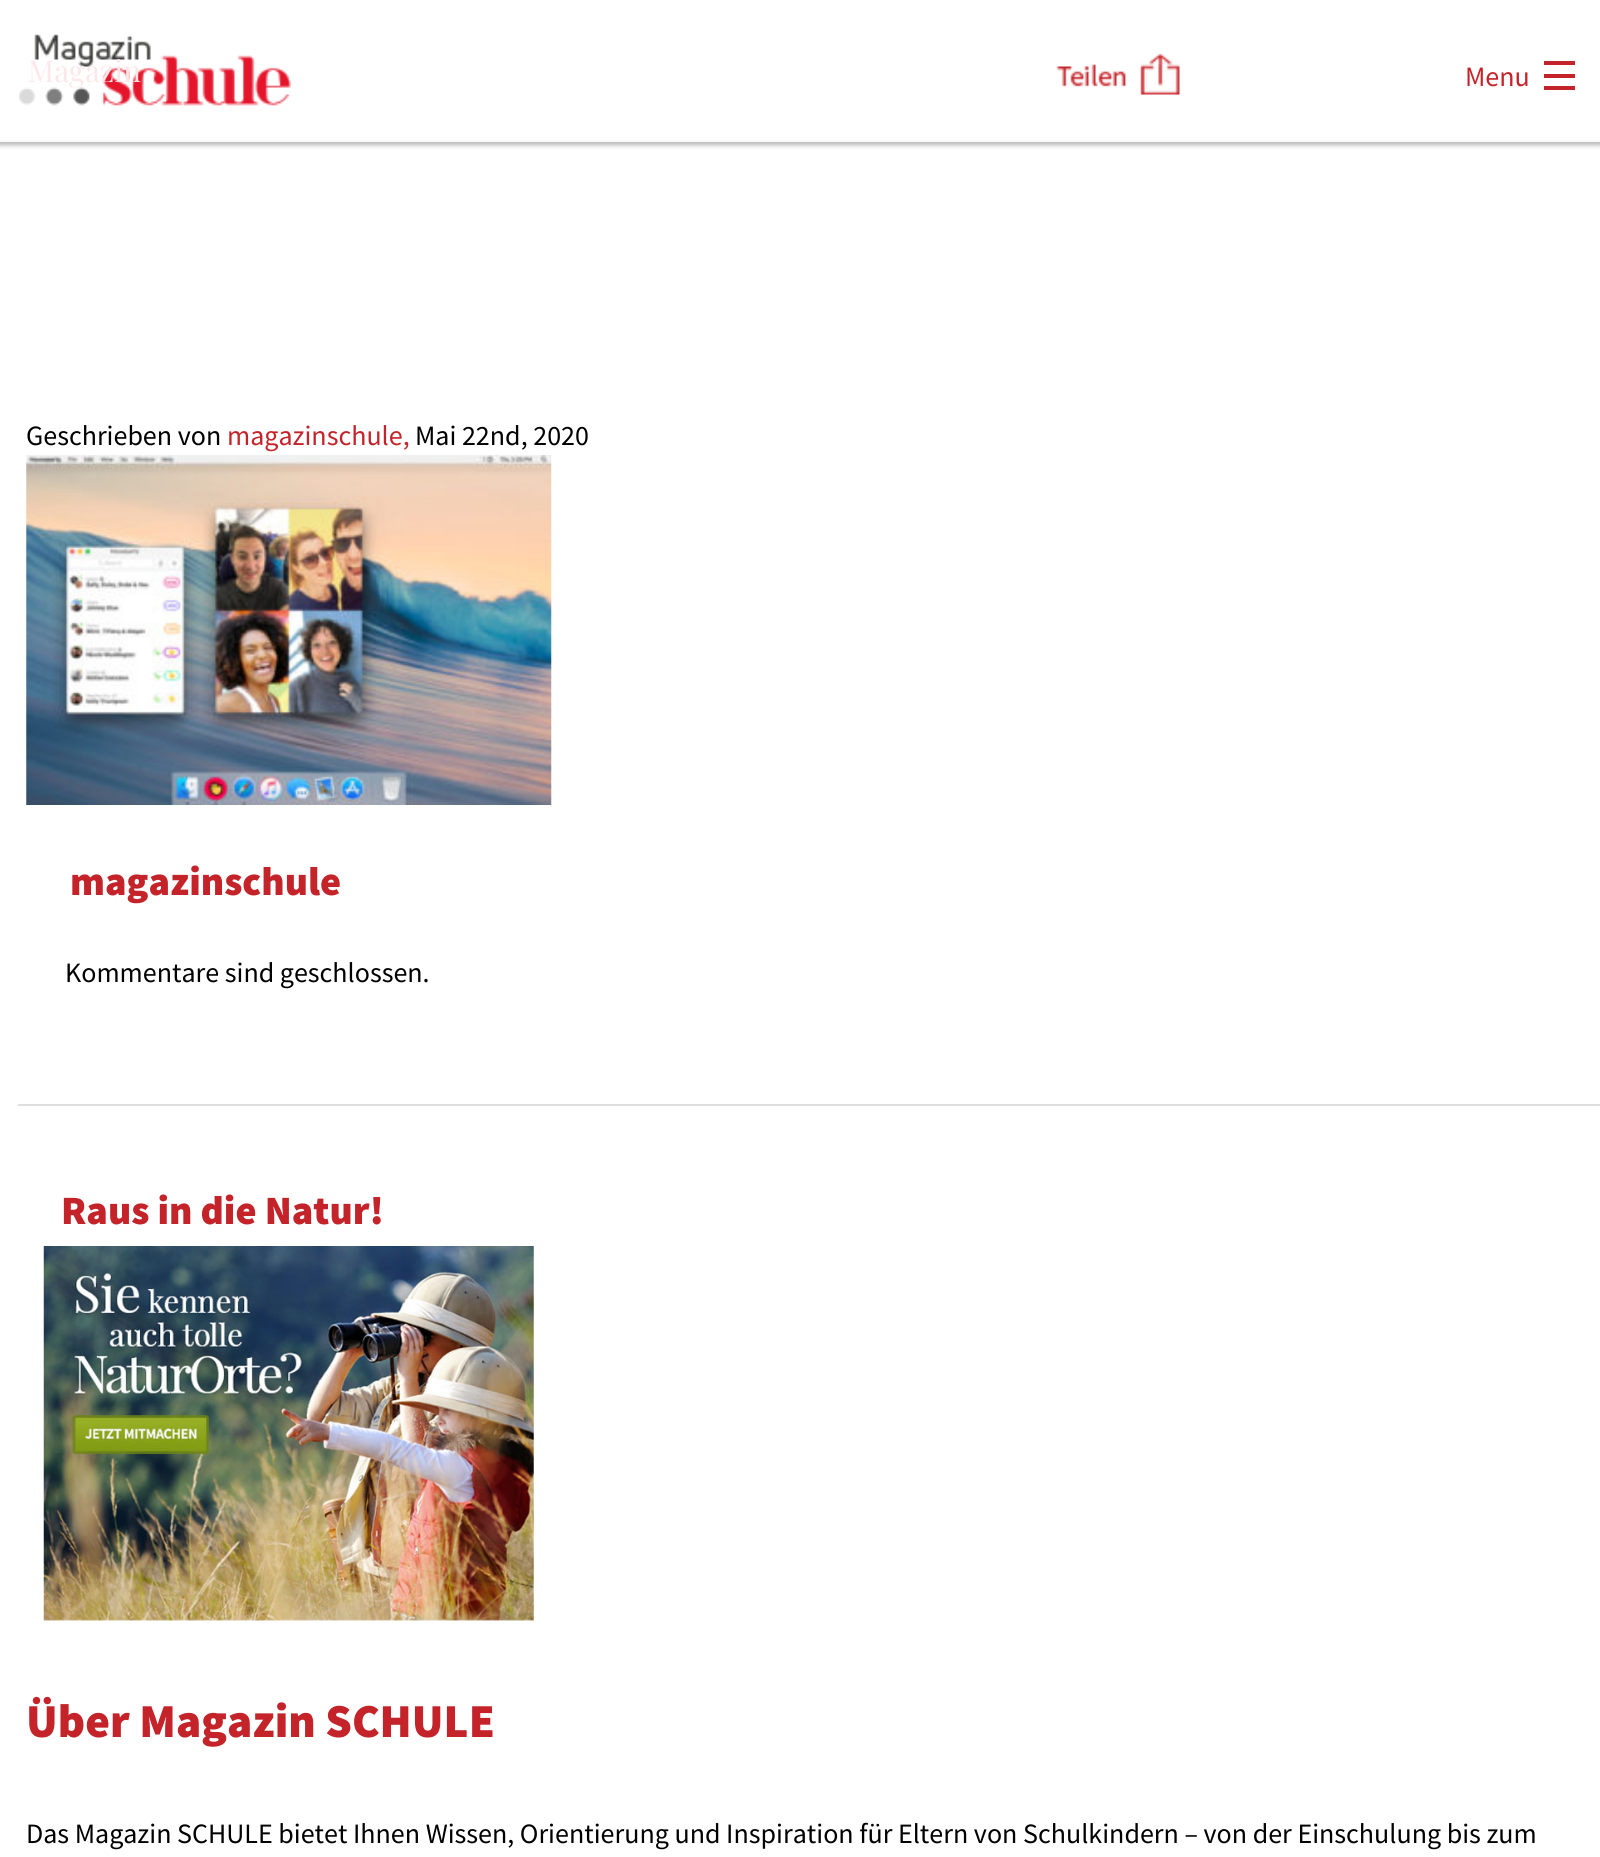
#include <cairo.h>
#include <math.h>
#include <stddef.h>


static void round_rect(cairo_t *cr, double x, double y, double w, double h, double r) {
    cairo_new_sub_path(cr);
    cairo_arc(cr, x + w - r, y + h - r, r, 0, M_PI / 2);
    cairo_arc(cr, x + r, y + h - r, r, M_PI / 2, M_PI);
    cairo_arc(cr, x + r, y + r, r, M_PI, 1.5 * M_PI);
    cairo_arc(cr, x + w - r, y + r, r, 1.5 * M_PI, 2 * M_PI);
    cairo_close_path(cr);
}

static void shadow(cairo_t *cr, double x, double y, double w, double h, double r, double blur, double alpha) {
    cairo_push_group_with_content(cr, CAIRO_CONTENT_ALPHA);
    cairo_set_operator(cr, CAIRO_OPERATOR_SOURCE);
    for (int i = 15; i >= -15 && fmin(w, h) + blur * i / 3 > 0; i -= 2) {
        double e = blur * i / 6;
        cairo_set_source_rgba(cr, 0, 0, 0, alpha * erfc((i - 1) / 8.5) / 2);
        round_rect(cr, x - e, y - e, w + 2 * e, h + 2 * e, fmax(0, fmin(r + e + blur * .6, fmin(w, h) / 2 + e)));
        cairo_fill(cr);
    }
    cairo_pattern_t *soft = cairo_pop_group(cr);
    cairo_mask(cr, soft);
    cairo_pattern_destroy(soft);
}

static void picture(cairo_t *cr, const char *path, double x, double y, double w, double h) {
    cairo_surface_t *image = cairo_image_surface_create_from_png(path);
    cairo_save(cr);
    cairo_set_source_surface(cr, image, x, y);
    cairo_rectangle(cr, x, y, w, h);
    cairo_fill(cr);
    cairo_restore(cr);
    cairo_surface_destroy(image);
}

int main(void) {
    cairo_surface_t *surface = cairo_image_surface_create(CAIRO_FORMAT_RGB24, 1600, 1857);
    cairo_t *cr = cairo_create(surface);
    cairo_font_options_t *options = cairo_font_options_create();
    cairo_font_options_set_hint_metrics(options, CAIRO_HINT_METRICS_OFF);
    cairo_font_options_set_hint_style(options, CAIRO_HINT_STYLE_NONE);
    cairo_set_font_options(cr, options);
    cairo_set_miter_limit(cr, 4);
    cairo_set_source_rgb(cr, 1, 1, 1);
    cairo_paint(cr);
    cairo_set_source_rgb(cr, 0, 0, 0);
    shadow(cr, -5, -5, 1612, 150, 0, 2.5, 0.3);
    cairo_set_source_rgb(cr, 1, 1, 1);
    cairo_rectangle(cr, 0, 0, 1600, 140);
    cairo_fill(cr);
    picture(cr, "img1.png", 19, 34, 272, 72);
    cairo_select_font_face(cr, "Playfair Display", CAIRO_FONT_SLANT_NORMAL, CAIRO_FONT_WEIGHT_NORMAL);
    cairo_set_font_size(cr, 30);
    cairo_set_source_rgb(cr, 0.988, 0.906, 0.914);
    cairo_move_to(cr, 28, 82);
    cairo_show_text(cr, "Magazin");
    picture(cr, "img2.png", 1056, 53, 124, 42);
    cairo_select_font_face(cr, "Source Sans Pro", CAIRO_FONT_SLANT_NORMAL, CAIRO_FONT_WEIGHT_NORMAL);
    cairo_set_font_size(cr, 28);
    cairo_set_source_rgb(cr, 0.769, 0.137, 0.161);
    cairo_move_to(cr, 1465, 86);
    cairo_show_text(cr, "Menu");
    cairo_rectangle(cr, 1544, 86, 31, 4);
    cairo_fill(cr);
    cairo_rectangle(cr, 1544, 74, 31, 4);
    cairo_fill(cr);
    cairo_rectangle(cr, 1544, 61, 31, 4);
    cairo_fill(cr);
    cairo_set_source_rgba(cr, 1, 1, 1, 0.92);
    cairo_rectangle(cr, 0, 140, 1600, 2);
    cairo_fill(cr);
    cairo_set_source_rgb(cr, 0, 0, 0);
    cairo_move_to(cr, 26, 445);
    cairo_show_text(cr, "Geschrieben von");
    cairo_set_source_rgb(cr, 0.769, 0.137, 0.161);
    cairo_move_to(cr, 227, 445);
    cairo_show_text(cr, "magazinschule,");
    cairo_set_source_rgb(cr, 0, 0, 0);
    cairo_move_to(cr, 415, 445);
    cairo_show_text(cr, "Mai 22nd, 2020");
    picture(cr, "img3.png", 26, 455, 526, 350);
    cairo_select_font_face(cr, "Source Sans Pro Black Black", CAIRO_FONT_SLANT_NORMAL, CAIRO_FONT_WEIGHT_NORMAL);
    cairo_set_font_size(cr, 40.25);
    cairo_set_source_rgb(cr, 0.769, 0.137, 0.161);
    cairo_move_to(cr, 70, 895);
    cairo_show_text(cr, "magazinschule");
    cairo_select_font_face(cr, "Source Sans Pro", CAIRO_FONT_SLANT_NORMAL, CAIRO_FONT_WEIGHT_NORMAL);
    cairo_set_font_size(cr, 28);
    cairo_set_source_rgb(cr, 0, 0, 0);
    cairo_move_to(cr, 65, 982);
    cairo_show_text(cr, "Kommentare sind geschlossen.");
    cairo_set_source_rgb(cr, 0.875, 0.871, 0.871);
    cairo_rectangle(cr, 18, 1104, 1582, 2);
    cairo_fill(cr);
    cairo_select_font_face(cr, "Source Sans Pro Black Black", CAIRO_FONT_SLANT_NORMAL, CAIRO_FONT_WEIGHT_NORMAL);
    cairo_set_font_size(cr, 40.25);
    cairo_set_source_rgb(cr, 0.769, 0.137, 0.161);
    cairo_move_to(cr, 61, 1224);
    cairo_show_text(cr, "Raus in die Natur!");
    picture(cr, "img4.png", 43, 1246, 491, 375);
    cairo_set_font_size(cr, 47.25);
    cairo_move_to(cr, 26, 1737);
    cairo_show_text(cr, "Über Magazin SCHULE");
    cairo_select_font_face(cr, "Source Sans Pro", CAIRO_FONT_SLANT_NORMAL, CAIRO_FONT_WEIGHT_NORMAL);
    cairo_set_font_size(cr, 28);
    cairo_set_source_rgb(cr, 0, 0, 0);
    cairo_move_to(cr, 26, 1843);
    cairo_show_text(cr, "Das Magazin SCHULE bietet Ihnen Wissen, Orientierung und Inspiration für Eltern von Schulkindern – von der Einschulung bis zum");
    cairo_surface_write_to_png(surface, "page.png");
    cairo_font_options_destroy(options);
    cairo_destroy(cr);
    cairo_surface_destroy(surface);
    return 0;
}
